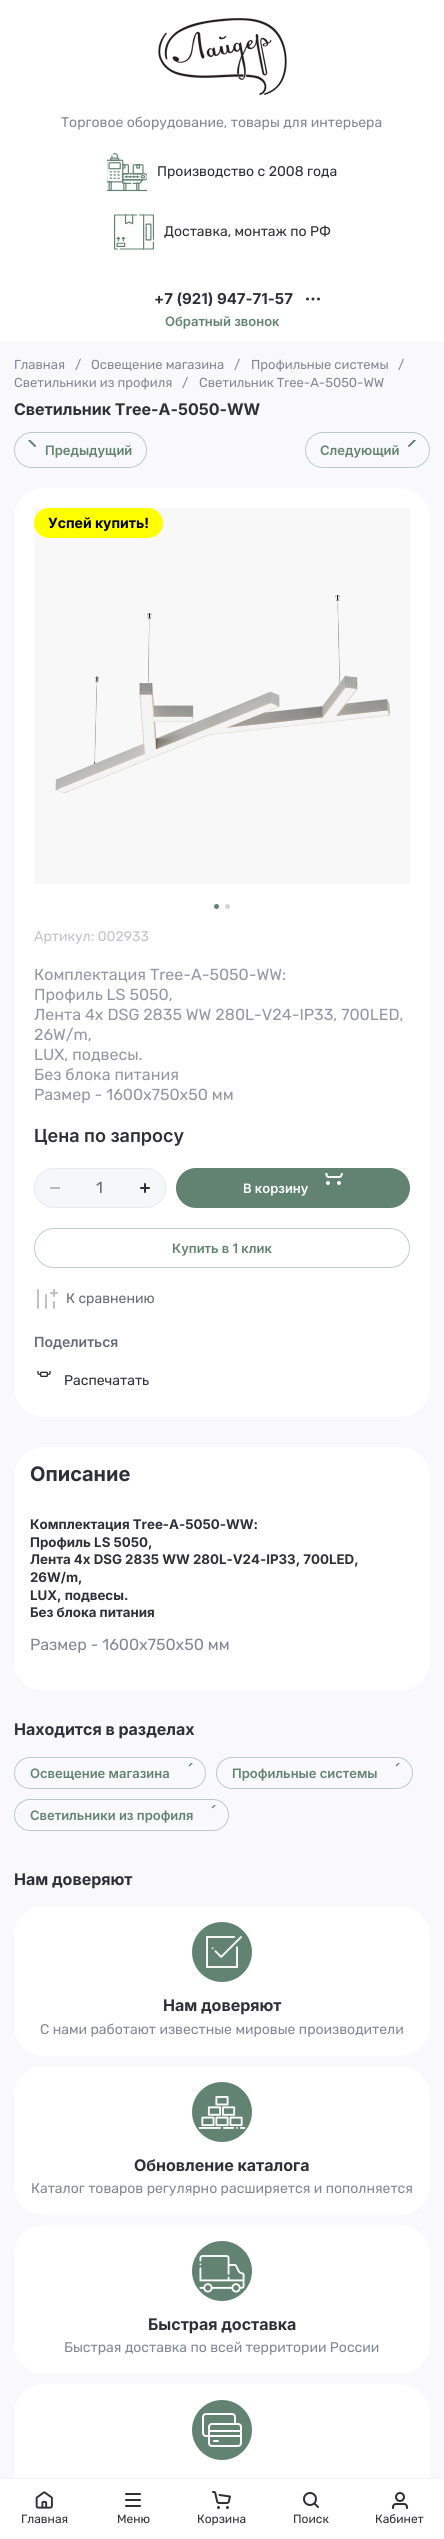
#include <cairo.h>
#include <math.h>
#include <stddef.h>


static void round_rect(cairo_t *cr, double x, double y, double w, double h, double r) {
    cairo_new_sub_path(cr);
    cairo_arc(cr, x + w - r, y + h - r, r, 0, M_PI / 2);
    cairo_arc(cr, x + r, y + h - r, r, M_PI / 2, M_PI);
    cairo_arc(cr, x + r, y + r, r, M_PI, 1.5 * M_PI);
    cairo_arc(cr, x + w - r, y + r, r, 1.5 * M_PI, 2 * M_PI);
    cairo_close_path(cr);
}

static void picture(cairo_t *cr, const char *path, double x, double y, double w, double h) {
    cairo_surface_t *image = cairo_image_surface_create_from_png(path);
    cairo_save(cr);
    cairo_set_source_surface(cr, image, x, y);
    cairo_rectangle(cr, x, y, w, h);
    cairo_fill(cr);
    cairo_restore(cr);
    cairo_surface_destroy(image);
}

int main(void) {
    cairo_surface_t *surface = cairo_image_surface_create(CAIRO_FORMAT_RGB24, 444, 2539);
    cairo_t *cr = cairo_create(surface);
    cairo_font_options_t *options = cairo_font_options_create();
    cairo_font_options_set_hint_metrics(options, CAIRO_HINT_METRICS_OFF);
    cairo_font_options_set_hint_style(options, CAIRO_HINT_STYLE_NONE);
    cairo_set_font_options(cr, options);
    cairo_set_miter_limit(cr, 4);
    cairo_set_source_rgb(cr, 0.973, 0.976, 0.984);
    cairo_paint(cr);
    cairo_set_source_rgb(cr, 1, 1, 1);
    cairo_rectangle(cr, 0, 0, 444, 342);
    cairo_fill(cr);
    picture(cr, "img1.png", 158, 18, 129, 77);
    cairo_select_font_face(cr, "Rubik", CAIRO_FONT_SLANT_NORMAL, CAIRO_FONT_WEIGHT_NORMAL);
    cairo_set_font_size(cr, 14);
    cairo_set_source_rgb(cr, 0.518, 0.525, 0.592);
    cairo_move_to(cr, 61, 127);
    cairo_show_text(cr, "Торговое оборудование, товары для интерьера");
    picture(cr, "img2.png", 107, 153, 40, 39);
    cairo_set_source_rgb(cr, 0.18, 0.184, 0.22);
    cairo_move_to(cr, 157, 176);
    cairo_show_text(cr, "Производство с 2008 года");
    picture(cr, "img3.png", 114, 214, 40, 36);
    cairo_move_to(cr, 164, 236);
    cairo_show_text(cr, "Доставка, монтаж по РФ");
    cairo_select_font_face(cr, "Inter", CAIRO_FONT_SLANT_NORMAL, CAIRO_FONT_WEIGHT_BOLD);
    cairo_set_font_size(cr, 15);
    cairo_move_to(cr, 154, 304);
    cairo_show_text(cr, "+7 (921) 947-71-57");
    picture(cr, "img4.png", 306, 297, 14, 4);
    cairo_select_font_face(cr, "Inter SemiBold", CAIRO_FONT_SLANT_NORMAL, CAIRO_FONT_WEIGHT_NORMAL);
    cairo_set_font_size(cr, 13);
    cairo_set_source_rgb(cr, 0.384, 0.514, 0.443);
    cairo_move_to(cr, 165, 326);
    cairo_show_text(cr, "Обратный звонок");
    cairo_select_font_face(cr, "Rubik", CAIRO_FONT_SLANT_NORMAL, CAIRO_FONT_WEIGHT_NORMAL);
    cairo_set_source_rgb(cr, 0.518, 0.525, 0.592);
    cairo_move_to(cr, 14, 369);
    cairo_show_text(cr, "Главная");
    cairo_move_to(cr, 75, 369);
    cairo_show_text(cr, "/");
    cairo_move_to(cr, 91, 369);
    cairo_show_text(cr, "Освещение магазина");
    cairo_move_to(cr, 234, 369);
    cairo_show_text(cr, "/");
    cairo_move_to(cr, 251, 369);
    cairo_show_text(cr, "Профильные системы");
    cairo_move_to(cr, 398, 369);
    cairo_show_text(cr, "/");
    cairo_move_to(cr, 14, 387);
    cairo_show_text(cr, "Светильники из профиля");
    cairo_move_to(cr, 182, 387);
    cairo_show_text(cr, "/");
    cairo_move_to(cr, 199, 387);
    cairo_show_text(cr, "Светильник Tree-A-5050-WW");
    cairo_select_font_face(cr, "Inter", CAIRO_FONT_SLANT_NORMAL, CAIRO_FONT_WEIGHT_BOLD);
    cairo_set_font_size(cr, 16);
    cairo_set_source_rgb(cr, 0.18, 0.184, 0.22);
    cairo_move_to(cr, 14, 415);
    cairo_show_text(cr, "Светильник Tree-A-5050-WW");
    round_rect(cr, 14.5, 432.5, 132, 35, 17.5);
    cairo_set_source_rgb(cr, 0.737, 0.792, 0.769);
    cairo_set_line_width(cr, 1);
    cairo_stroke(cr);
    picture(cr, "img5.png", 28, 440, 8, 7);
    cairo_select_font_face(cr, "Inter SemiBold", CAIRO_FONT_SLANT_NORMAL, CAIRO_FONT_WEIGHT_NORMAL);
    cairo_set_font_size(cr, 13);
    cairo_set_source_rgb(cr, 0.384, 0.514, 0.443);
    cairo_move_to(cr, 45, 455);
    cairo_show_text(cr, "Предыдущий");
    round_rect(cr, 305.5, 432.5, 124, 35, 17.5);
    cairo_set_source_rgb(cr, 0.737, 0.792, 0.769);
    cairo_stroke(cr);
    picture(cr, "img6.png", 408, 440, 8, 7);
    cairo_set_source_rgb(cr, 0.384, 0.514, 0.443);
    cairo_move_to(cr, 320, 455);
    cairo_show_text(cr, "Следующий");
    cairo_set_source_rgb(cr, 1, 1, 1);
    round_rect(cr, 14, 488, 416, 929, 30);
    cairo_fill(cr);
    picture(cr, "img7.png", 55, 595, 335, 198);
    cairo_set_source_rgba(cr, 0, 0, 0, 0.03);
    cairo_rectangle(cr, 34, 508, 376, 376);
    cairo_fill(cr);
    cairo_set_source_rgb(cr, 0.384, 0.514, 0.443);
    cairo_arc(cr, 216.5, 906.5, 2.5, 0, 2 * M_PI);
    cairo_fill(cr);
    cairo_set_source_rgb(cr, 0.835, 0.835, 0.843);
    cairo_arc(cr, 227.5, 906.5, 2.5, 0, 2 * M_PI);
    cairo_fill(cr);
    cairo_set_source_rgb(cr, 1, 1, 0);
    round_rect(cr, 34, 508, 129, 30, 15);
    cairo_fill(cr);
    cairo_select_font_face(cr, "Inter", CAIRO_FONT_SLANT_NORMAL, CAIRO_FONT_WEIGHT_BOLD);
    cairo_set_font_size(cr, 14);
    cairo_set_source_rgb(cr, 0, 0, 0);
    cairo_move_to(cr, 48, 528);
    cairo_show_text(cr, "Успей купить!");
    cairo_select_font_face(cr, "Rubik", CAIRO_FONT_SLANT_NORMAL, CAIRO_FONT_WEIGHT_NORMAL);
    cairo_set_source_rgb(cr, 0.761, 0.765, 0.796);
    cairo_move_to(cr, 34, 941);
    cairo_show_text(cr, "Артикул: 002933");
    cairo_set_font_size(cr, 16);
    cairo_set_source_rgb(cr, 0.584, 0.588, 0.647);
    cairo_move_to(cr, 34, 980);
    cairo_show_text(cr, "Комплектация Tree-A-5050-WW:");
    cairo_move_to(cr, 34, 1000);
    cairo_show_text(cr, "Профиль LS 5050,");
    cairo_move_to(cr, 34, 1020);
    cairo_show_text(cr, "Лента 4x DSG 2835 WW 280L-V24-IP33, 700LED,");
    cairo_move_to(cr, 34, 1040);
    cairo_show_text(cr, "26W/m,");
    cairo_move_to(cr, 34, 1060);
    cairo_show_text(cr, "LUX, подвесы.");
    cairo_move_to(cr, 34, 1080);
    cairo_show_text(cr, "Без блока питания");
    cairo_move_to(cr, 34, 1100);
    cairo_show_text(cr, "Размер - 1600x750x50 мм");
    cairo_select_font_face(cr, "Inter SemiBold", CAIRO_FONT_SLANT_NORMAL, CAIRO_FONT_WEIGHT_NORMAL);
    cairo_set_font_size(cr, 18);
    cairo_set_source_rgb(cr, 0.18, 0.184, 0.22);
    cairo_move_to(cr, 34, 1142);
    cairo_show_text(cr, "Цена по запросу");
    cairo_set_source_rgb(cr, 0.961, 0.965, 0.976);
    round_rect(cr, 34, 1168, 132, 40, 20);
    cairo_fill(cr);
    round_rect(cr, 34.5, 1168.5, 131, 39, 19.5);
    cairo_set_source_rgba(cr, 0.824, 0.827, 0.878, 0.4);
    cairo_stroke(cr);
    picture(cr, "img8.png", 50, 1187, 10, 2);
    cairo_select_font_face(cr, "Rubik", CAIRO_FONT_SLANT_NORMAL, CAIRO_FONT_WEIGHT_NORMAL);
    cairo_set_font_size(cr, 16);
    cairo_set_source_rgb(cr, 0.416, 0.42, 0.447);
    cairo_move_to(cr, 96, 1193);
    cairo_show_text(cr, "1");
    picture(cr, "img9.png", 140, 1183, 10, 10);
    cairo_set_source_rgb(cr, 0.384, 0.514, 0.443);
    round_rect(cr, 176, 1168, 234, 40, 20);
    cairo_fill(cr);
    picture(cr, "img10.png", 325, 1173, 18, 12);
    cairo_select_font_face(cr, "Inter SemiBold", CAIRO_FONT_SLANT_NORMAL, CAIRO_FONT_WEIGHT_NORMAL);
    cairo_set_font_size(cr, 13);
    cairo_set_source_rgb(cr, 1, 1, 1);
    cairo_move_to(cr, 243, 1193);
    cairo_show_text(cr, "В корзину");
    round_rect(cr, 34.5, 1228.5, 375, 39, 19.5);
    cairo_set_source_rgb(cr, 0.753, 0.804, 0.776);
    cairo_stroke(cr);
    cairo_set_source_rgb(cr, 0.384, 0.514, 0.443);
    cairo_move_to(cr, 172, 1253);
    cairo_show_text(cr, "Купить в 1 клик");
    picture(cr, "img11.png", 37, 1289, 21, 20);
    cairo_select_font_face(cr, "Rubik", CAIRO_FONT_SLANT_NORMAL, CAIRO_FONT_WEIGHT_NORMAL);
    cairo_set_font_size(cr, 14);
    cairo_set_source_rgb(cr, 0.416, 0.42, 0.447);
    cairo_move_to(cr, 66, 1303);
    cairo_show_text(cr, "К сравнению");
    cairo_select_font_face(cr, "Inter SemiBold", CAIRO_FONT_SLANT_NORMAL, CAIRO_FONT_WEIGHT_NORMAL);
    cairo_set_source_rgb(cr, 0.404, 0.412, 0.494);
    cairo_move_to(cr, 34, 1347);
    cairo_show_text(cr, "Поделиться");
    picture(cr, "img12.png", 37, 1371, 14, 6);
    cairo_select_font_face(cr, "Rubik", CAIRO_FONT_SLANT_NORMAL, CAIRO_FONT_WEIGHT_NORMAL);
    cairo_set_source_rgb(cr, 0.18, 0.184, 0.22);
    cairo_move_to(cr, 64, 1385);
    cairo_show_text(cr, "Распечатать");
    cairo_new_path(cr);
    cairo_move_to(cr, 64, 1389.5);
    cairo_line_to(cr, 149, 1389.5);
    cairo_set_source_rgb(cr, 0.929, 0.929, 0.953);
    cairo_set_dash(cr, (double[]){3, 2.12}, 2, 0);
    cairo_stroke(cr);
    cairo_set_source_rgb(cr, 1, 1, 1);
    round_rect(cr, 14, 1447, 416, 244, 30);
    cairo_fill(cr);
    cairo_select_font_face(cr, "Inter", CAIRO_FONT_SLANT_NORMAL, CAIRO_FONT_WEIGHT_BOLD);
    cairo_set_font_size(cr, 20);
    cairo_set_source_rgb(cr, 0.18, 0.184, 0.22);
    cairo_move_to(cr, 30, 1481);
    cairo_show_text(cr, "Описание");
    cairo_set_font_size(cr, 13.3);
    cairo_move_to(cr, 30, 1529);
    cairo_show_text(cr, "Комплектация Tree-A-5050-WW:");
    cairo_move_to(cr, 30, 1547);
    cairo_show_text(cr, "Профиль LS 5050,");
    cairo_move_to(cr, 30, 1564);
    cairo_show_text(cr, "Лента 4x DSG 2835 WW 280L-V24-IP33, 700LED,");
    cairo_move_to(cr, 30, 1582);
    cairo_show_text(cr, "26W/m,");
    cairo_move_to(cr, 30, 1600);
    cairo_show_text(cr, "LUX, подвесы.");
    cairo_move_to(cr, 30, 1617);
    cairo_show_text(cr, "Без блока питания");
    cairo_select_font_face(cr, "Rubik", CAIRO_FONT_SLANT_NORMAL, CAIRO_FONT_WEIGHT_NORMAL);
    cairo_set_font_size(cr, 16);
    cairo_set_source_rgb(cr, 0.518, 0.525, 0.592);
    cairo_move_to(cr, 30, 1650);
    cairo_show_text(cr, "Размер - 1600x750x50 мм");
    cairo_select_font_face(cr, "Inter", CAIRO_FONT_SLANT_NORMAL, CAIRO_FONT_WEIGHT_BOLD);
    cairo_set_source_rgb(cr, 0.18, 0.184, 0.22);
    cairo_move_to(cr, 14, 1735);
    cairo_show_text(cr, "Находится в разделах");
    round_rect(cr, 14.5, 1757.5, 191, 31, 15.5);
    cairo_set_source_rgb(cr, 0.737, 0.792, 0.769);
    cairo_set_dash(cr, NULL, 0, 0);
    cairo_stroke(cr);
    picture(cr, "img13.png", 188, 1763, 5, 4);
    cairo_select_font_face(cr, "Inter SemiBold", CAIRO_FONT_SLANT_NORMAL, CAIRO_FONT_WEIGHT_NORMAL);
    cairo_set_font_size(cr, 13);
    cairo_set_source_rgb(cr, 0.384, 0.514, 0.443);
    cairo_move_to(cr, 30, 1778);
    cairo_show_text(cr, "Освещение магазина");
    round_rect(cr, 216.5, 1757.5, 196, 31, 15.5);
    cairo_set_source_rgb(cr, 0.737, 0.792, 0.769);
    cairo_stroke(cr);
    picture(cr, "img13.png", 395, 1763, 5, 4);
    cairo_set_source_rgb(cr, 0.384, 0.514, 0.443);
    cairo_move_to(cr, 232, 1778);
    cairo_show_text(cr, "Профильные системы");
    round_rect(cr, 14.5, 1799.5, 214, 31, 15.5);
    cairo_set_source_rgb(cr, 0.737, 0.792, 0.769);
    cairo_stroke(cr);
    picture(cr, "img13.png", 211, 1805, 5, 4);
    cairo_set_source_rgb(cr, 0.384, 0.514, 0.443);
    cairo_move_to(cr, 30, 1820);
    cairo_show_text(cr, "Светильники из профиля");
    cairo_select_font_face(cr, "Inter", CAIRO_FONT_SLANT_NORMAL, CAIRO_FONT_WEIGHT_BOLD);
    cairo_set_font_size(cr, 16);
    cairo_set_source_rgb(cr, 0.18, 0.184, 0.22);
    cairo_move_to(cr, 14, 1885);
    cairo_show_text(cr, "Нам доверяют");
    cairo_set_source_rgb(cr, 1, 1, 1);
    round_rect(cr, 14, 1906, 416, 150, 30);
    cairo_fill(cr);
    cairo_set_source_rgb(cr, 0.384, 0.514, 0.443);
    cairo_arc(cr, 222, 1952, 30, 0, 2 * M_PI);
    cairo_fill(cr);
    picture(cr, "img14.png", 206, 1936, 36, 32);
    cairo_set_source_rgb(cr, 0.18, 0.184, 0.22);
    cairo_move_to(cr, 163, 2011);
    cairo_show_text(cr, "Нам доверяют");
    cairo_select_font_face(cr, "Rubik", CAIRO_FONT_SLANT_NORMAL, CAIRO_FONT_WEIGHT_NORMAL);
    cairo_set_font_size(cr, 14);
    cairo_set_source_rgb(cr, 0.518, 0.525, 0.592);
    cairo_move_to(cr, 40, 2034);
    cairo_show_text(cr, "С нами работают известные мировые производители");
    cairo_set_source_rgb(cr, 1, 1, 1);
    round_rect(cr, 14, 2066, 416, 149, 30);
    cairo_fill(cr);
    cairo_set_source_rgb(cr, 0.384, 0.514, 0.443);
    cairo_arc(cr, 222, 2112, 30, 0, 2 * M_PI);
    cairo_fill(cr);
    picture(cr, "img15.png", 198, 2096, 48, 33);
    cairo_select_font_face(cr, "Inter", CAIRO_FONT_SLANT_NORMAL, CAIRO_FONT_WEIGHT_BOLD);
    cairo_set_font_size(cr, 16);
    cairo_set_source_rgb(cr, 0.18, 0.184, 0.22);
    cairo_move_to(cr, 134, 2171);
    cairo_show_text(cr, "Обновление каталога");
    cairo_select_font_face(cr, "Rubik", CAIRO_FONT_SLANT_NORMAL, CAIRO_FONT_WEIGHT_NORMAL);
    cairo_set_font_size(cr, 14);
    cairo_set_source_rgb(cr, 0.518, 0.525, 0.592);
    cairo_move_to(cr, 31, 2193);
    cairo_show_text(cr, "Каталог товаров регулярно расширяется и пополняется");
    cairo_set_source_rgb(cr, 1, 1, 1);
    round_rect(cr, 14, 2225, 416, 149, 30);
    cairo_fill(cr);
    cairo_set_source_rgb(cr, 0.384, 0.514, 0.443);
    cairo_arc(cr, 222, 2271, 30, 0, 2 * M_PI);
    cairo_fill(cr);
    picture(cr, "img16.png", 199, 2255, 46, 38);
    cairo_select_font_face(cr, "Inter", CAIRO_FONT_SLANT_NORMAL, CAIRO_FONT_WEIGHT_BOLD);
    cairo_set_font_size(cr, 16);
    cairo_set_source_rgb(cr, 0.18, 0.184, 0.22);
    cairo_move_to(cr, 148, 2330);
    cairo_show_text(cr, "Быстрая доставка");
    cairo_select_font_face(cr, "Rubik", CAIRO_FONT_SLANT_NORMAL, CAIRO_FONT_WEIGHT_NORMAL);
    cairo_set_font_size(cr, 14);
    cairo_set_source_rgb(cr, 0.518, 0.525, 0.592);
    cairo_move_to(cr, 64, 2352);
    cairo_show_text(cr, "Быстрая доставка по всей территории России");
    cairo_set_source_rgb(cr, 1, 1, 1);
    round_rect(cr, 14, 2384, 416, 149, 30);
    cairo_fill(cr);
    cairo_set_source_rgb(cr, 0.384, 0.514, 0.443);
    cairo_arc(cr, 222, 2430, 30, 0, 2 * M_PI);
    cairo_fill(cr);
    picture(cr, "img17.png", 202, 2413, 40, 34);
    cairo_set_source_rgb(cr, 1, 1, 1);
    cairo_rectangle(cr, 0, 2479, 444, 60);
    cairo_fill(cr);
    cairo_set_source_rgb(cr, 0.949, 0.949, 0.965);
    cairo_rectangle(cr, 0, 2478, 444, 1);
    cairo_fill(cr);
    picture(cr, "img18.png", 35, 2491, 18, 18);
    cairo_set_font_size(cr, 12);
    cairo_set_source_rgb(cr, 0.18, 0.184, 0.22);
    cairo_move_to(cr, 21, 2523);
    cairo_show_text(cr, "Главная");
    picture(cr, "img19.png", 125, 2493, 16, 14);
    cairo_move_to(cr, 117, 2523);
    cairo_show_text(cr, "Меню");
    picture(cr, "img20.png", 212, 2491, 19, 18);
    cairo_move_to(cr, 197, 2523);
    cairo_show_text(cr, "Корзина");
    picture(cr, "img21.png", 303, 2492, 16, 16);
    cairo_move_to(cr, 293, 2523);
    cairo_show_text(cr, "Поиск");
    picture(cr, "img22.png", 392, 2492, 16, 17);
    cairo_move_to(cr, 375, 2523);
    cairo_show_text(cr, "Кабинет");
    cairo_surface_write_to_png(surface, "page.png");
    cairo_font_options_destroy(options);
    cairo_destroy(cr);
    cairo_surface_destroy(surface);
    return 0;
}
